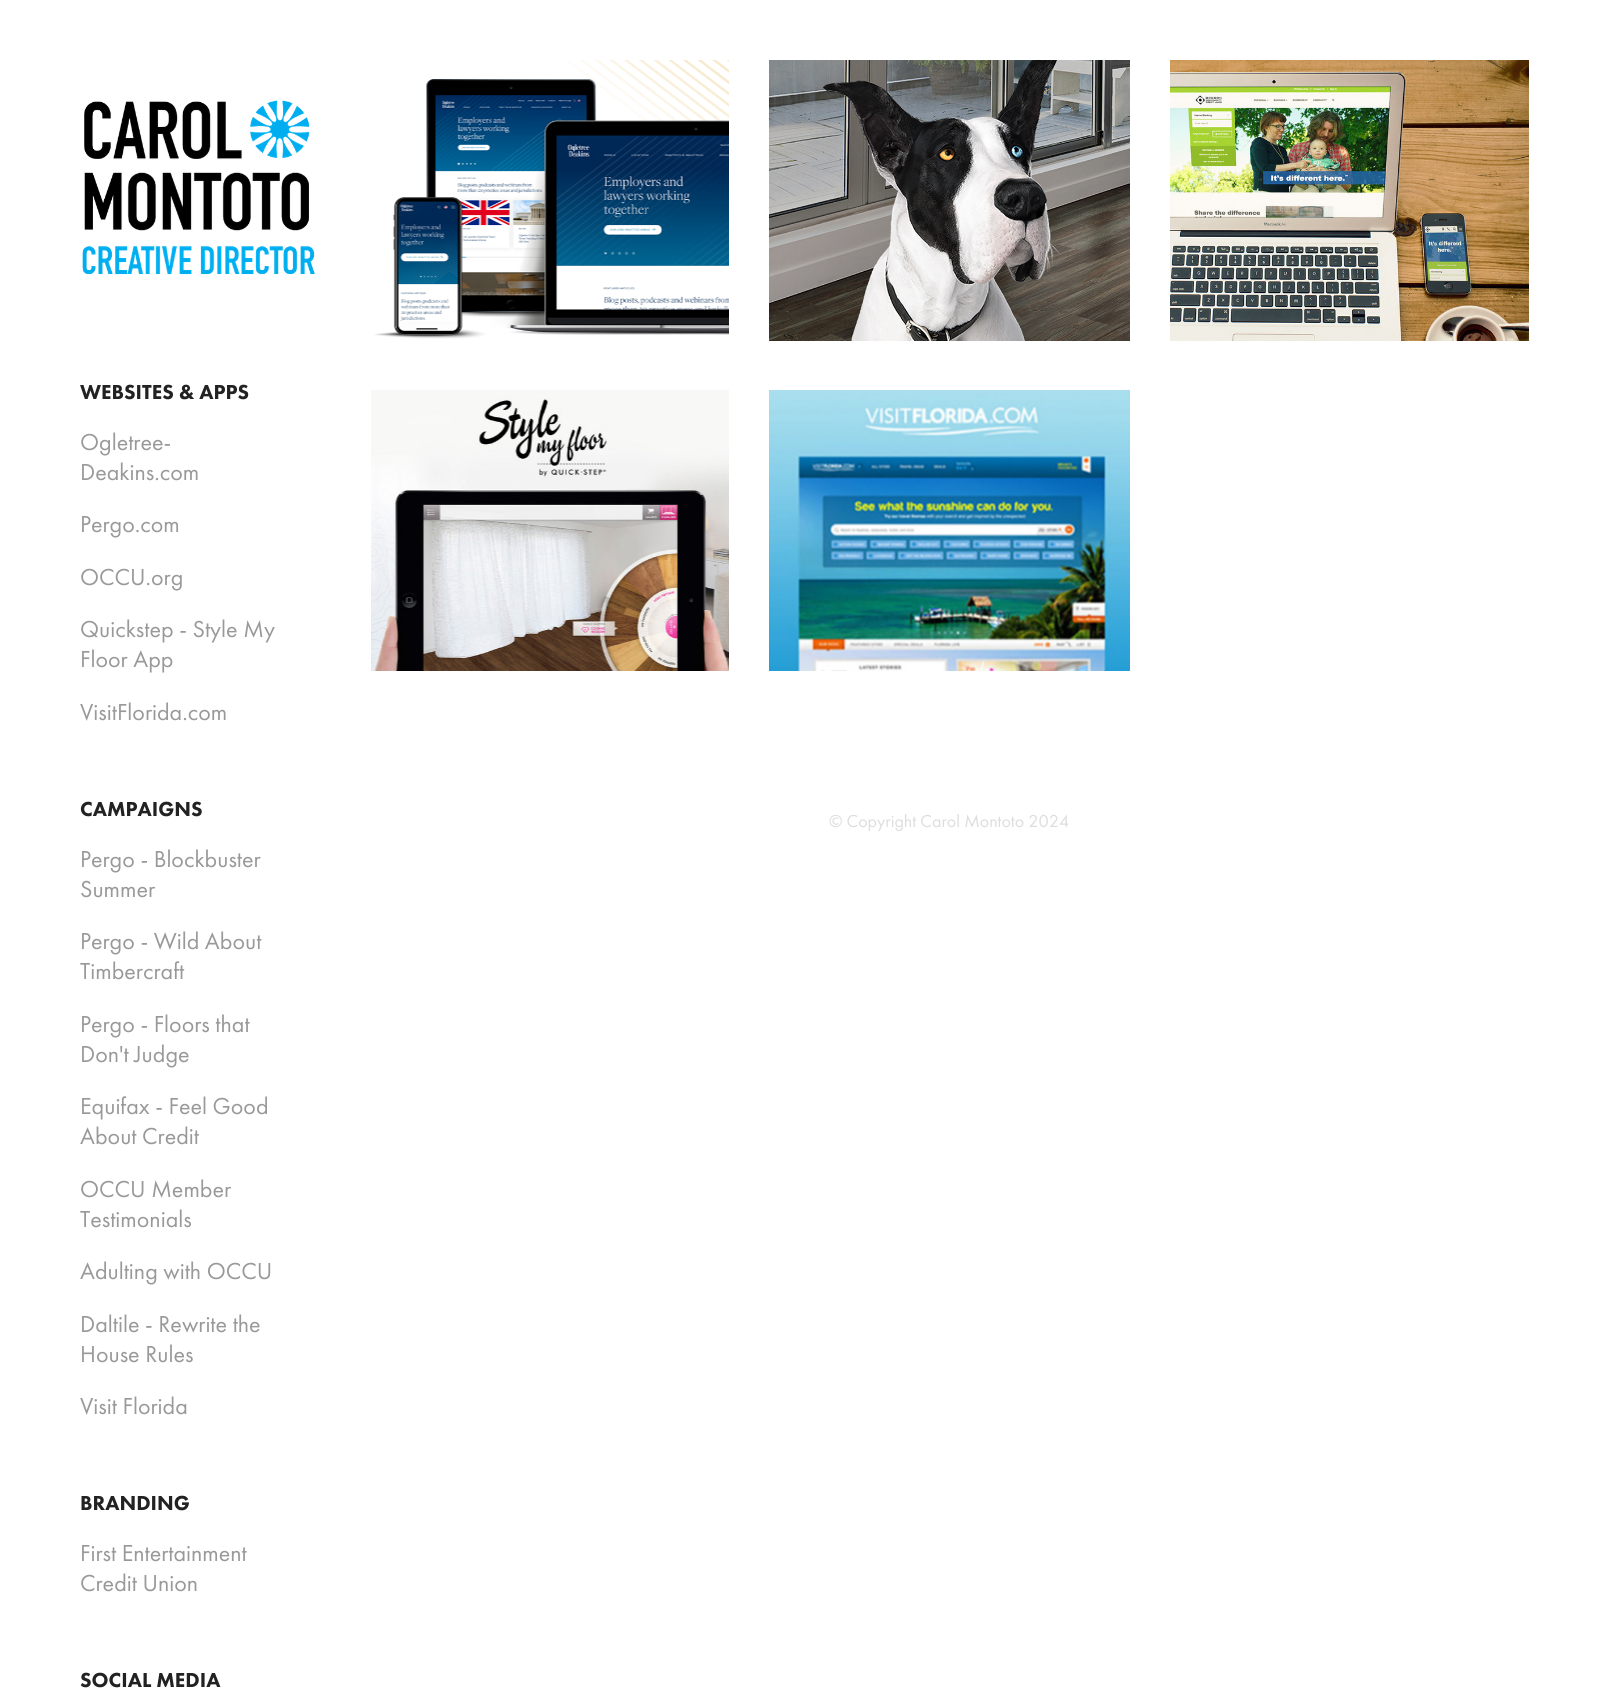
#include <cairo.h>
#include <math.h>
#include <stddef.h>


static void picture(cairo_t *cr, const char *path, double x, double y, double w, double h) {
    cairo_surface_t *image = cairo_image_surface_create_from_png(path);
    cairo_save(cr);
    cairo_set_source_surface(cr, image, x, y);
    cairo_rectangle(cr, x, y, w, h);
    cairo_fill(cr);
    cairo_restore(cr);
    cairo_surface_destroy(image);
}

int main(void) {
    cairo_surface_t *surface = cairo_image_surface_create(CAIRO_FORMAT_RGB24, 1609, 1707);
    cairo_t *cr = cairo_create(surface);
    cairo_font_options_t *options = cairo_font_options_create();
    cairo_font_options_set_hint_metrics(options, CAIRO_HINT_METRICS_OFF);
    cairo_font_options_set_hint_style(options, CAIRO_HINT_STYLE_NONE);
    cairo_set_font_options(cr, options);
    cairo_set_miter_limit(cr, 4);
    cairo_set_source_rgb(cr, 1, 1, 1);
    cairo_paint(cr);
    picture(cr, "img1.png", 82, 100, 233, 175);
    cairo_select_font_face(cr, "Futura PT Black", CAIRO_FONT_SLANT_NORMAL, CAIRO_FONT_WEIGHT_NORMAL);
    cairo_set_font_size(cr, 21);
    cairo_set_source_rgb(cr, 0.133, 0.133, 0.133);
    cairo_move_to(cr, 80, 399);
    cairo_show_text(cr, "WEBSITES & APPS");
    cairo_select_font_face(cr, "Futura PT", CAIRO_FONT_SLANT_NORMAL, CAIRO_FONT_WEIGHT_NORMAL);
    cairo_set_font_size(cr, 24);
    cairo_set_source_rgb(cr, 0.6, 0.6, 0.6);
    cairo_move_to(cr, 80, 450);
    cairo_show_text(cr, "Ogletree-");
    cairo_move_to(cr, 80, 480);
    cairo_show_text(cr, "Deakins.com");
    cairo_move_to(cr, 80, 532);
    cairo_show_text(cr, "Pergo.com");
    cairo_move_to(cr, 80, 585);
    cairo_show_text(cr, "OCCU.org");
    cairo_move_to(cr, 80, 637);
    cairo_show_text(cr, "Quickstep - Style My");
    cairo_move_to(cr, 80, 667);
    cairo_show_text(cr, "Floor App");
    cairo_move_to(cr, 80, 720);
    cairo_show_text(cr, "VisitFlorida.com");
    cairo_select_font_face(cr, "Futura PT Black", CAIRO_FONT_SLANT_NORMAL, CAIRO_FONT_WEIGHT_NORMAL);
    cairo_set_font_size(cr, 21);
    cairo_set_source_rgb(cr, 0.133, 0.133, 0.133);
    cairo_move_to(cr, 80, 816);
    cairo_show_text(cr, "CAMPAIGNS");
    cairo_select_font_face(cr, "Futura PT", CAIRO_FONT_SLANT_NORMAL, CAIRO_FONT_WEIGHT_NORMAL);
    cairo_set_font_size(cr, 24);
    cairo_set_source_rgb(cr, 0.6, 0.6, 0.6);
    cairo_move_to(cr, 80, 867);
    cairo_show_text(cr, "Pergo - Blockbuster");
    cairo_move_to(cr, 80, 897);
    cairo_show_text(cr, "Summer");
    cairo_move_to(cr, 80, 949);
    cairo_show_text(cr, "Pergo - Wild About");
    cairo_move_to(cr, 80, 979);
    cairo_show_text(cr, "Timbercraft");
    cairo_move_to(cr, 80, 1032);
    cairo_show_text(cr, "Pergo - Floors that");
    cairo_move_to(cr, 80, 1062);
    cairo_show_text(cr, "Don't Judge");
    cairo_move_to(cr, 80, 1114);
    cairo_show_text(cr, "Equifax - Feel Good");
    cairo_move_to(cr, 80, 1144);
    cairo_show_text(cr, "About Credit");
    cairo_move_to(cr, 80, 1197);
    cairo_show_text(cr, "OCCU Member");
    cairo_move_to(cr, 80, 1227);
    cairo_show_text(cr, "Testimonials");
    cairo_move_to(cr, 80, 1279);
    cairo_show_text(cr, "Adulting with OCCU");
    cairo_move_to(cr, 80, 1332);
    cairo_show_text(cr, "Daltile - Rewrite the");
    cairo_move_to(cr, 80, 1362);
    cairo_show_text(cr, "House Rules");
    cairo_move_to(cr, 80, 1414);
    cairo_show_text(cr, "Visit Florida");
    cairo_select_font_face(cr, "Futura PT Black", CAIRO_FONT_SLANT_NORMAL, CAIRO_FONT_WEIGHT_NORMAL);
    cairo_set_font_size(cr, 21);
    cairo_set_source_rgb(cr, 0.133, 0.133, 0.133);
    cairo_move_to(cr, 80, 1510);
    cairo_show_text(cr, "BRANDING");
    cairo_select_font_face(cr, "Futura PT", CAIRO_FONT_SLANT_NORMAL, CAIRO_FONT_WEIGHT_NORMAL);
    cairo_set_font_size(cr, 24);
    cairo_set_source_rgb(cr, 0.6, 0.6, 0.6);
    cairo_move_to(cr, 80, 1561);
    cairo_show_text(cr, "First Entertainment");
    cairo_move_to(cr, 80, 1591);
    cairo_show_text(cr, "Credit Union");
    cairo_select_font_face(cr, "Futura PT Black", CAIRO_FONT_SLANT_NORMAL, CAIRO_FONT_WEIGHT_NORMAL);
    cairo_set_font_size(cr, 21);
    cairo_set_source_rgb(cr, 0.133, 0.133, 0.133);
    cairo_move_to(cr, 80, 1687);
    cairo_show_text(cr, "SOCIAL MEDIA");
    picture(cr, "img2.png", 374, 60, 355, 279);
    picture(cr, "img3.png", 769, 60, 361, 281);
    picture(cr, "img4.png", 1170, 60, 359, 281);
    picture(cr, "img5.png", 371, 390, 358, 281);
    picture(cr, "img6.png", 769, 390, 361, 281);
    cairo_select_font_face(cr, "Futura PT", CAIRO_FONT_SLANT_NORMAL, CAIRO_FONT_WEIGHT_NORMAL);
    cairo_set_font_size(cr, 18);
    cairo_set_source_rgb(cr, 0.867, 0.867, 0.867);
    cairo_move_to(cr, 829, 827);
    cairo_show_text(cr, "© Copyright Carol Montoto 2024");
    cairo_surface_write_to_png(surface, "page.png");
    cairo_font_options_destroy(options);
    cairo_destroy(cr);
    cairo_surface_destroy(surface);
    return 0;
}
